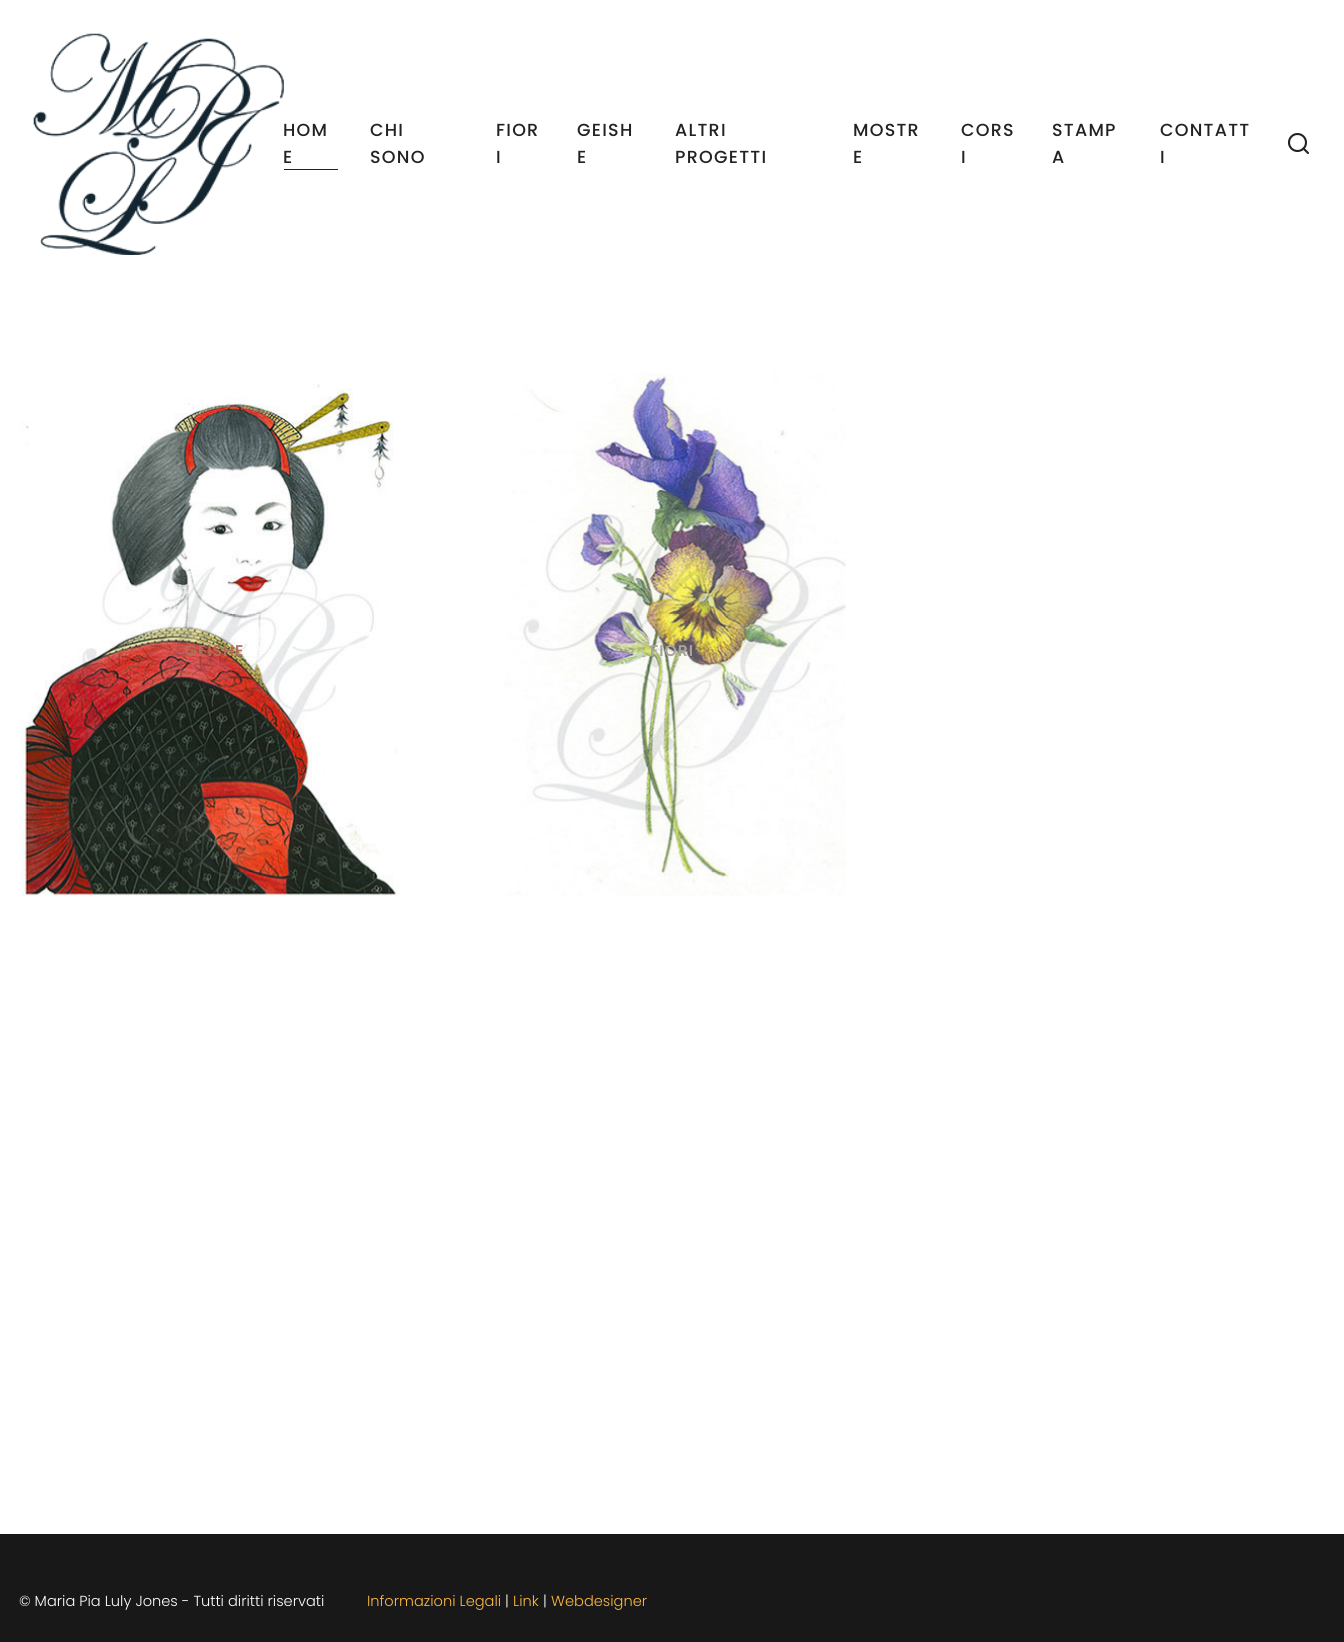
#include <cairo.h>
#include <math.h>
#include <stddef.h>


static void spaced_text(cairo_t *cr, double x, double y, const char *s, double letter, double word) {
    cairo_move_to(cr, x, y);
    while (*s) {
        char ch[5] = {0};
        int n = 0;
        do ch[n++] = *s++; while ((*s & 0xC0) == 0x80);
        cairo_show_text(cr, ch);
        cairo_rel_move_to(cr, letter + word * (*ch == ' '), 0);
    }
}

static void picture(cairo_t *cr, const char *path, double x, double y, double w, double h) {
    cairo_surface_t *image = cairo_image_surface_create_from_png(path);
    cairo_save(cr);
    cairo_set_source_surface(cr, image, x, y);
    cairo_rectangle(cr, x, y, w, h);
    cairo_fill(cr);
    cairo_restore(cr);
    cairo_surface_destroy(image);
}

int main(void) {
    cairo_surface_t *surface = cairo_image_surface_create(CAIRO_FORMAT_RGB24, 1344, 1642);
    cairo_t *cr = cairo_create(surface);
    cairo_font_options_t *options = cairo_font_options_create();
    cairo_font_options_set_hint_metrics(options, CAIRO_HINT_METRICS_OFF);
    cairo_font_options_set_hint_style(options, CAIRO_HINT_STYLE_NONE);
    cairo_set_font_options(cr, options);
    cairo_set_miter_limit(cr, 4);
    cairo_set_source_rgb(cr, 1, 1, 1);
    cairo_paint(cr);
    picture(cr, "img1.png", 33, 33, 251, 222);
    cairo_select_font_face(cr, "Poppins Medium", CAIRO_FONT_SLANT_NORMAL, CAIRO_FONT_WEIGHT_NORMAL);
    cairo_set_font_size(cr, 17.5);
    cairo_set_source_rgb(cr, 0.133, 0.133, 0.133);
    spaced_text(cr, 283, 136, "HOM", 1.25, 0);
    spaced_text(cr, 283, 163, "E", 1.25, 0);
    cairo_rectangle(cr, 284, 169, 54, 1);
    cairo_fill(cr);
    spaced_text(cr, 370, 136, "CHI", 1.25, 0);
    spaced_text(cr, 370, 163, "SONO", 1.25, 0);
    spaced_text(cr, 496, 136, "FIOR", 1.25, 0);
    spaced_text(cr, 496, 163, "I", 1.25, 0);
    spaced_text(cr, 577, 136, "GEISH", 1.25, 0);
    spaced_text(cr, 577, 163, "E", 1.25, 0);
    spaced_text(cr, 675, 136, "ALTRI", 1.25, 0);
    spaced_text(cr, 675, 163, "PROGETTI", 1.25, 0);
    spaced_text(cr, 853, 136, "MOSTR", 1.25, 0);
    spaced_text(cr, 853, 163, "E", 1.25, 0);
    spaced_text(cr, 961, 136, "CORS", 1.25, 0);
    spaced_text(cr, 961, 163, "I", 1.25, 0);
    spaced_text(cr, 1052, 136, "STAMP", 1.25, 0);
    spaced_text(cr, 1052, 163, "A", 1.25, 0);
    spaced_text(cr, 1160, 136, "CONTATT", 1.25, 0);
    spaced_text(cr, 1160, 163, "I", 1.25, 0);
    cairo_new_path(cr);
    cairo_arc(cr, 1297.5, 142.5, 8.5, 0, 2 * M_PI);
    cairo_set_line_width(cr, 2.1);
    cairo_stroke(cr);
    cairo_new_path(cr);
    cairo_move_to(cr, 1308, 153);
    cairo_line_to(cr, 1303.5, 148.5);
    cairo_set_line_cap(cr, CAIRO_LINE_CAP_ROUND);
    cairo_set_line_join(cr, CAIRO_LINE_JOIN_ROUND);
    cairo_stroke(cr);
    picture(cr, "img2.png", 20, 384, 379, 513);
    cairo_select_font_face(cr, "Poppins SemiBold", CAIRO_FONT_SLANT_NORMAL, CAIRO_FONT_WEIGHT_NORMAL);
    cairo_set_font_size(cr, 15.5);
    cairo_set_source_rgb(cr, 0.702, 0.431, 0.349);
    spaced_text(cr, 185, 656, "GEISHE", 1, 0);
    picture(cr, "img3.png", 504, 373, 342, 523);
    cairo_set_source_rgb(cr, 0.655, 0.647, 0.608);
    spaced_text(cr, 650, 656, "FIORI", 1, 0);
    cairo_set_source_rgb(cr, 0.094, 0.094, 0.094);
    cairo_rectangle(cr, 0, 1534, 1344, 108);
    cairo_fill(cr);
    cairo_select_font_face(cr, "Poppins Light", CAIRO_FONT_SLANT_NORMAL, CAIRO_FONT_WEIGHT_NORMAL);
    cairo_set_font_size(cr, 14.6);
    cairo_set_source_rgb(cr, 1, 1, 1);
    cairo_move_to(cr, 19, 1606);
    cairo_show_text(cr, "© Maria Pia Luly Jones - Tutti diritti riservati");
    cairo_set_source_rgb(cr, 0.992, 0.722, 0.267);
    cairo_move_to(cr, 367, 1606);
    cairo_show_text(cr, "Informazioni Legali");
    cairo_set_source_rgb(cr, 1, 1, 1);
    cairo_move_to(cr, 505, 1606);
    cairo_show_text(cr, "|");
    cairo_set_source_rgb(cr, 0.992, 0.722, 0.267);
    cairo_move_to(cr, 513, 1606);
    cairo_show_text(cr, "Link");
    cairo_set_source_rgb(cr, 1, 1, 1);
    cairo_move_to(cr, 543, 1606);
    cairo_show_text(cr, "|");
    cairo_set_source_rgb(cr, 0.992, 0.722, 0.267);
    cairo_move_to(cr, 551, 1606);
    cairo_show_text(cr, "Webdesigner");
    cairo_surface_write_to_png(surface, "page.png");
    cairo_font_options_destroy(options);
    cairo_destroy(cr);
    cairo_surface_destroy(surface);
    return 0;
}
